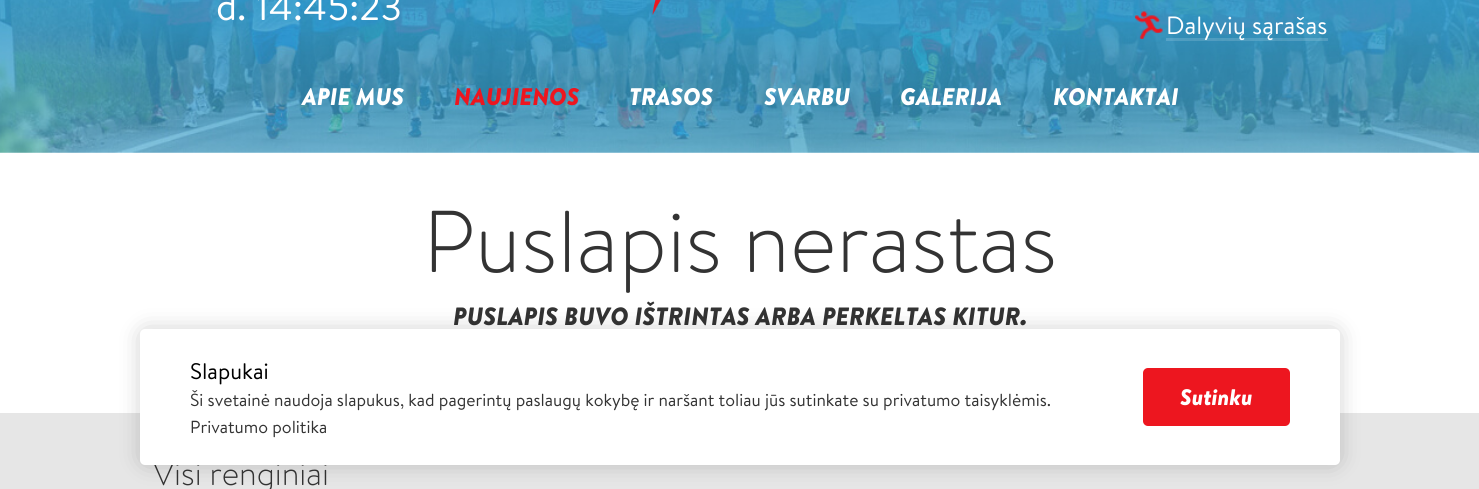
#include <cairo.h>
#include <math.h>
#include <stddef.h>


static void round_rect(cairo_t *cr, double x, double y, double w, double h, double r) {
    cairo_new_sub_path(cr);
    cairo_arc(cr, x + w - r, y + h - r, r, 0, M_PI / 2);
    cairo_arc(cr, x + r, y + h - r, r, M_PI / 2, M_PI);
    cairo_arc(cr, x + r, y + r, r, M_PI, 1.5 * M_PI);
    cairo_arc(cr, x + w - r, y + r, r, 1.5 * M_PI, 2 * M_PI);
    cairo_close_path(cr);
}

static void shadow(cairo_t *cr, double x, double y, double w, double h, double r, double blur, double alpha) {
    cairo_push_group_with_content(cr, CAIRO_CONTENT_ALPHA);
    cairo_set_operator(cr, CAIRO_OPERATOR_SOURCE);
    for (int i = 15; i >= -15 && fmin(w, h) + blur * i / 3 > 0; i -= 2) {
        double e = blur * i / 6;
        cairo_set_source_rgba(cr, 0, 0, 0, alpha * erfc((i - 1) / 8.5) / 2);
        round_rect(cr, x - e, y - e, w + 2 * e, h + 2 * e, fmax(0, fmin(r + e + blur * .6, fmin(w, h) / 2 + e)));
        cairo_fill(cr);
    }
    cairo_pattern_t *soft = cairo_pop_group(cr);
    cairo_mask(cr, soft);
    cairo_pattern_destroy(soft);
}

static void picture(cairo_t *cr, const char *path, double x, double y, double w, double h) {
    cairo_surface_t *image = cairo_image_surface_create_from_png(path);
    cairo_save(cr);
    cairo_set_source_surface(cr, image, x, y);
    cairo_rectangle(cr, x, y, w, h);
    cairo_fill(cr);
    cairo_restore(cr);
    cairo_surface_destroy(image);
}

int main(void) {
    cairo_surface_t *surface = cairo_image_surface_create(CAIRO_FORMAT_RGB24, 1479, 489);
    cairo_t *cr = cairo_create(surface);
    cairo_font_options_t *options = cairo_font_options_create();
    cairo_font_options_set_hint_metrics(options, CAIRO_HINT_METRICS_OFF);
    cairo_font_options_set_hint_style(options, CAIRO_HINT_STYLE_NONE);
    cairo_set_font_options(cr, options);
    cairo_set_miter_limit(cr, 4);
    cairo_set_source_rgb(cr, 1, 1, 1);
    cairo_paint(cr);
    picture(cr, "img1.png", 0, 0, 1479, 153);
    cairo_select_font_face(cr, "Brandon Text", CAIRO_FONT_SLANT_NORMAL, CAIRO_FONT_WEIGHT_NORMAL);
    cairo_set_font_size(cr, 38.5);
    cairo_set_source_rgb(cr, 1, 1, 1);
    cairo_move_to(cr, 216, 20);
    cairo_show_text(cr, "d. 14:45:23");
    picture(cr, "img2.png", 652, 0, 9, 15);
    picture(cr, "img3.png", 1135, 11, 28, 28);
    cairo_set_font_size(cr, 25);
    cairo_move_to(cr, 1166, 34);
    cairo_show_text(cr, "Dalyvių sąrašas");
    cairo_set_source_rgba(cr, 1, 1, 1, 0.15);
    cairo_rectangle(cr, 1166, 38, 162, 3);
    cairo_fill(cr);
    cairo_select_font_face(cr, "Brandon Text Black", CAIRO_FONT_SLANT_ITALIC, CAIRO_FONT_WEIGHT_NORMAL);
    cairo_set_font_size(cr, 24);
    cairo_set_source_rgb(cr, 1, 1, 1);
    cairo_move_to(cr, 302, 105);
    cairo_show_text(cr, "APIE MUS");
    cairo_set_source_rgb(cr, 0.929, 0.086, 0.122);
    cairo_move_to(cr, 454, 105);
    cairo_show_text(cr, "NAUJIENOS");
    cairo_set_source_rgb(cr, 1, 1, 1);
    cairo_move_to(cr, 629, 105);
    cairo_show_text(cr, "TRASOS");
    cairo_move_to(cr, 764, 105);
    cairo_show_text(cr, "SVARBU");
    cairo_move_to(cr, 900, 105);
    cairo_show_text(cr, "GALERIJA");
    cairo_move_to(cr, 1053, 105);
    cairo_show_text(cr, "KONTAKTAI");
    cairo_select_font_face(cr, "Brandon Text Light", CAIRO_FONT_SLANT_NORMAL, CAIRO_FONT_WEIGHT_NORMAL);
    cairo_set_font_size(cr, 87.5);
    cairo_set_source_rgb(cr, 0.2, 0.2, 0.2);
    cairo_move_to(cr, 423, 272);
    cairo_show_text(cr, "Puslapis nerastas");
    cairo_select_font_face(cr, "Brandon Text Black", CAIRO_FONT_SLANT_ITALIC, CAIRO_FONT_WEIGHT_NORMAL);
    cairo_set_font_size(cr, 25);
    cairo_move_to(cr, 453, 325);
    cairo_show_text(cr, "PUSLAPIS BUVO IŠTRINTAS ARBA PERKELTAS KITUR.");
    cairo_set_source_rgb(cr, 0.902, 0.902, 0.902);
    cairo_rectangle(cr, 0, 413, 1479, 76);
    cairo_fill(cr);
    cairo_select_font_face(cr, "Brandon Text Light", CAIRO_FONT_SLANT_NORMAL, CAIRO_FONT_WEIGHT_NORMAL);
    cairo_set_font_size(cr, 32.75);
    cairo_set_source_rgb(cr, 0.2, 0.2, 0.2);
    cairo_move_to(cr, 153, 485);
    cairo_show_text(cr, "Visi renginiai");
    cairo_set_source_rgb(cr, 0, 0, 0);
    shadow(cr, 146, 335, 1188, 124, 0, 12.5, 0.3);
    cairo_set_source_rgb(cr, 1, 1, 1);
    round_rect(cr, 140, 329, 1200, 136, 5);
    cairo_fill(cr);
    cairo_select_font_face(cr, "Brandon Text", CAIRO_FONT_SLANT_NORMAL, CAIRO_FONT_WEIGHT_NORMAL);
    cairo_set_font_size(cr, 22.5);
    cairo_set_source_rgb(cr, 0, 0, 0);
    cairo_move_to(cr, 190, 379);
    cairo_show_text(cr, "Slapukai");
    cairo_set_font_size(cr, 17.5);
    cairo_set_source_rgb(cr, 0.2, 0.2, 0.2);
    cairo_move_to(cr, 190, 406);
    cairo_show_text(cr, "Ši svetainė naudoja slapukus, kad pagerintų paslaugų kokybę ir naršant toliau jūs sutinkate su privatumo taisyklėmis.");
    cairo_move_to(cr, 190, 433);
    cairo_show_text(cr, "Privatumo politika");
    cairo_set_source_rgb(cr, 0.929, 0.086, 0.122);
    round_rect(cr, 1143, 368, 147, 58, 5);
    cairo_fill(cr);
    cairo_select_font_face(cr, "Brandon Text Black", CAIRO_FONT_SLANT_ITALIC, CAIRO_FONT_WEIGHT_NORMAL);
    cairo_set_font_size(cr, 22.5);
    cairo_set_source_rgb(cr, 1, 1, 1);
    cairo_move_to(cr, 1180, 405);
    cairo_show_text(cr, "Sutinku");
    cairo_surface_write_to_png(surface, "page.png");
    cairo_font_options_destroy(options);
    cairo_destroy(cr);
    cairo_surface_destroy(surface);
    return 0;
}
